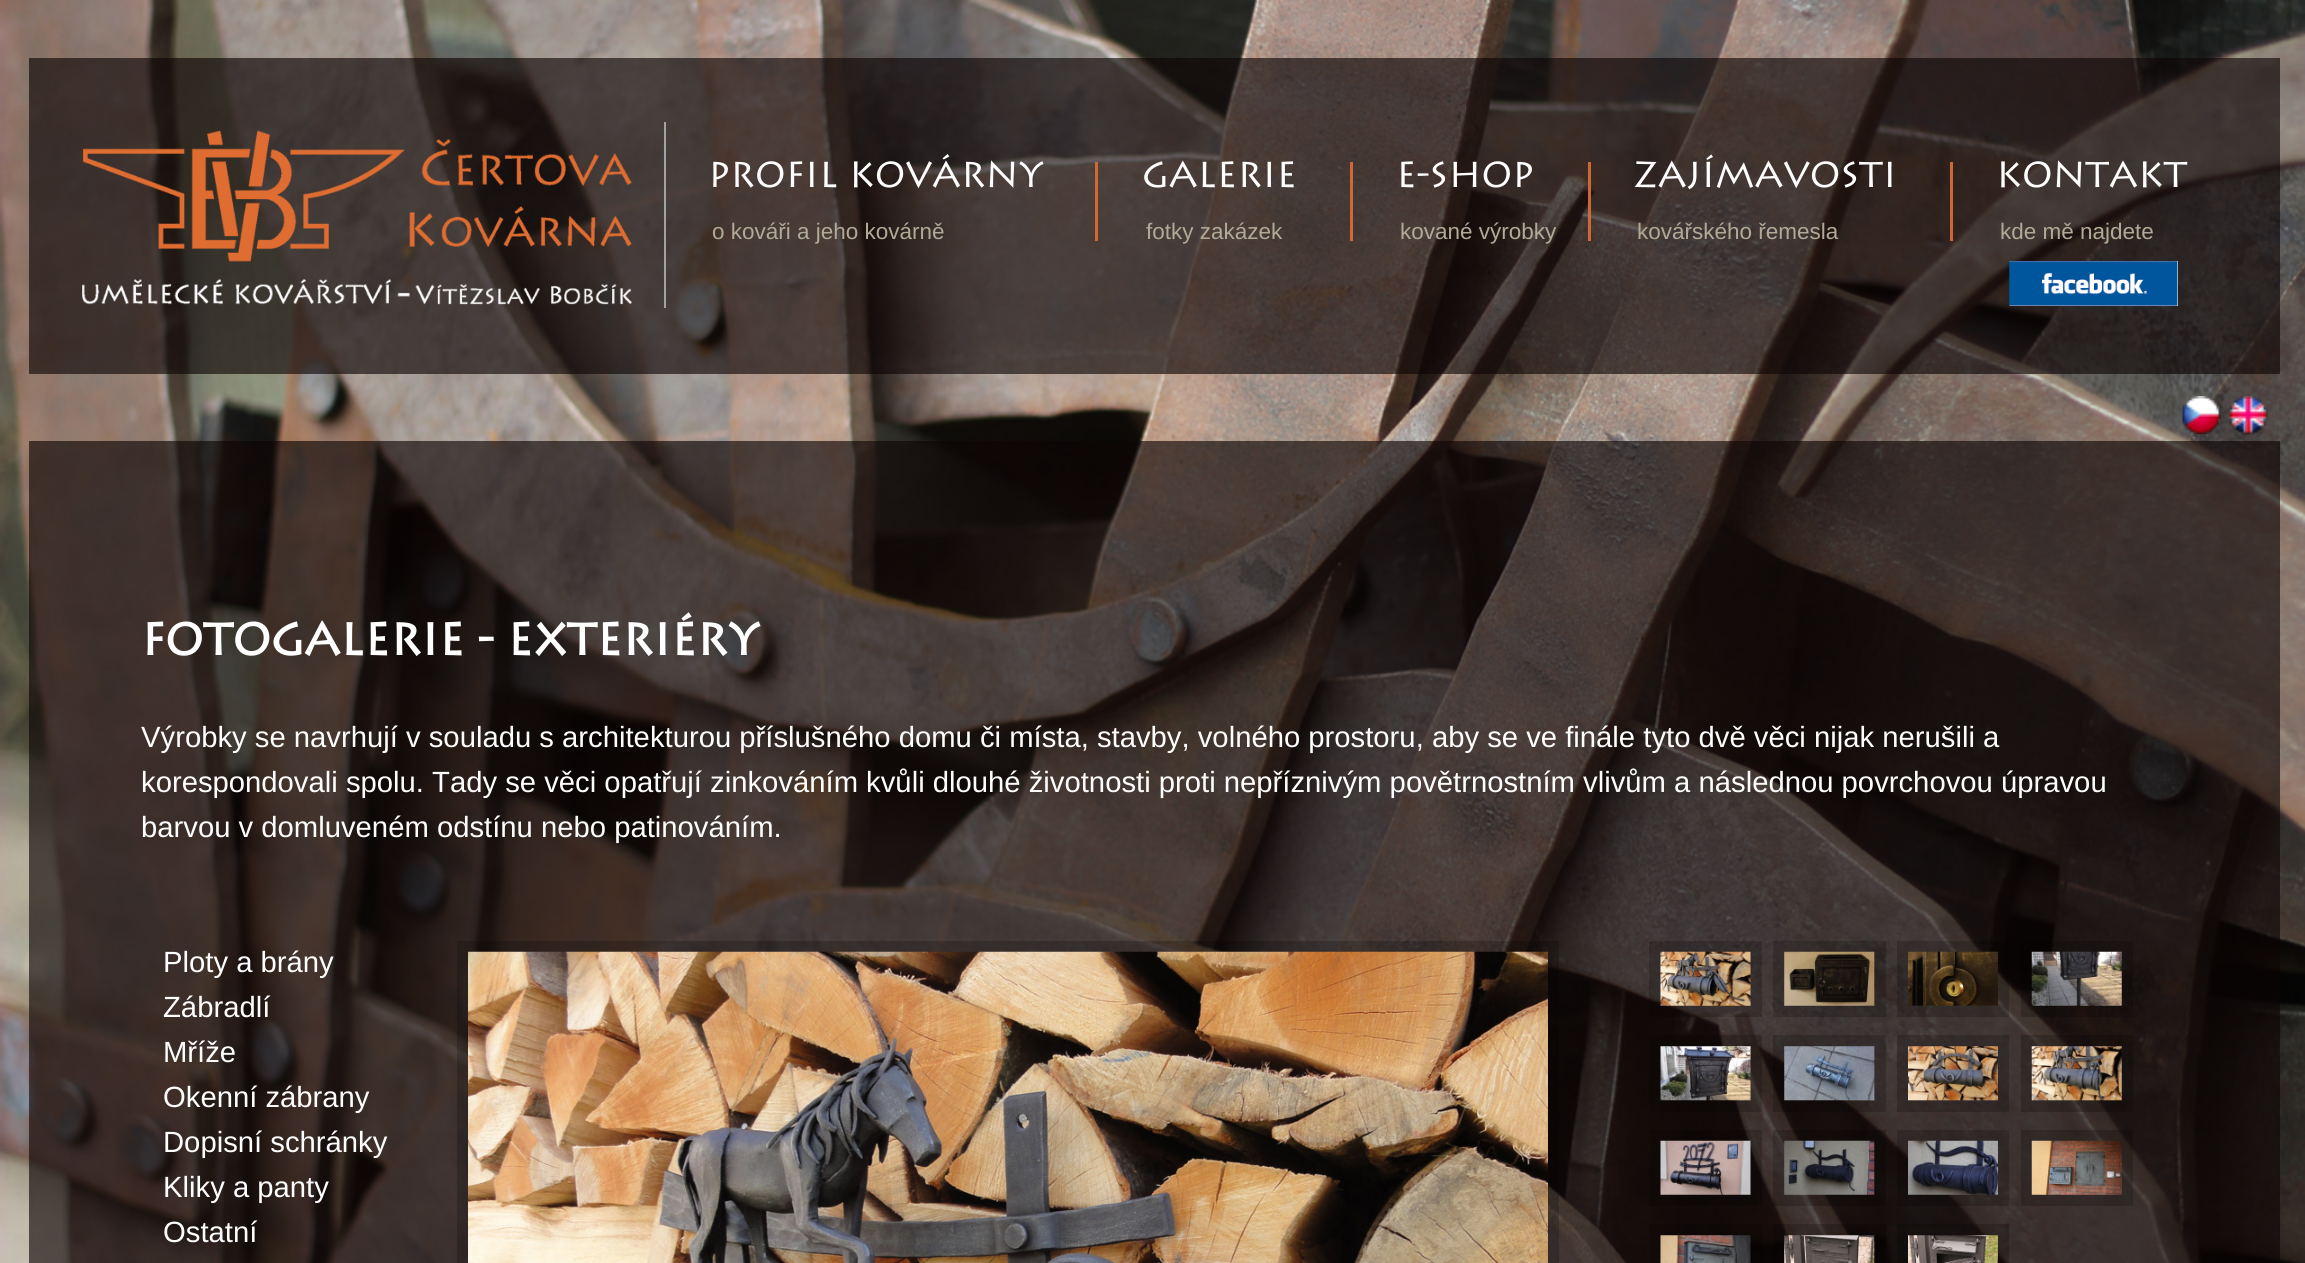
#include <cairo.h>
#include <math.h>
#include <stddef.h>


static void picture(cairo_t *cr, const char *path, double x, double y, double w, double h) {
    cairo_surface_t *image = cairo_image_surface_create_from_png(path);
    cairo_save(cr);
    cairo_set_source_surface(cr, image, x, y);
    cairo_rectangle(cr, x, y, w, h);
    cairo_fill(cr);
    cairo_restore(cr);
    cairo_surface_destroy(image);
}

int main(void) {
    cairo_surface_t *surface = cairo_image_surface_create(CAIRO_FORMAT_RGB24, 2305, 1263);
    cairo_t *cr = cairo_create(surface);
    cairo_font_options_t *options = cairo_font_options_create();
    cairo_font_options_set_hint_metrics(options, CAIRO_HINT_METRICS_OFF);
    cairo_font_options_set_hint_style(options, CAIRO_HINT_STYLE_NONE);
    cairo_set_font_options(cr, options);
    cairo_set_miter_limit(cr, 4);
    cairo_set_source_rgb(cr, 1, 1, 1);
    cairo_paint(cr);
    picture(cr, "img1.png", 0, 0, 2305, 1263);
    cairo_set_source_rgba(cr, 0.055, 0.024, 0.024, 0.63);
    cairo_rectangle(cr, 29, 58, 2251, 316);
    cairo_fill(cr);
    picture(cr, "img2.png", 82, 130, 550, 175);
    cairo_set_source_rgb(cr, 0.635, 0.635, 0.635);
    cairo_rectangle(cr, 664, 122, 2, 186);
    cairo_fill(cr);
    cairo_set_source_rgba(cr, 0.847, 0.42, 0.196, 0.94);
    cairo_rectangle(cr, 1095, 162, 3, 79);
    cairo_fill(cr);
    cairo_select_font_face(cr, "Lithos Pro", CAIRO_FONT_SLANT_NORMAL, CAIRO_FONT_WEIGHT_NORMAL);
    cairo_set_font_size(cr, 36);
    cairo_set_source_rgb(cr, 1, 1, 1);
    cairo_move_to(cr, 708, 187);
    cairo_show_text(cr, "PROFIL KOVÁRNY");
    cairo_select_font_face(cr, "Liberation Sans", CAIRO_FONT_SLANT_NORMAL, CAIRO_FONT_WEIGHT_NORMAL);
    cairo_set_font_size(cr, 22.5);
    cairo_set_source_rgb(cr, 0.69, 0.667, 0.592);
    cairo_move_to(cr, 712, 239);
    cairo_show_text(cr, "o kováři a jeho kovárně");
    cairo_set_source_rgba(cr, 0.847, 0.42, 0.196, 0.94);
    cairo_rectangle(cr, 1350, 162, 3, 79);
    cairo_fill(cr);
    cairo_select_font_face(cr, "Lithos Pro", CAIRO_FONT_SLANT_NORMAL, CAIRO_FONT_WEIGHT_NORMAL);
    cairo_set_font_size(cr, 36);
    cairo_set_source_rgb(cr, 1, 1, 1);
    cairo_move_to(cr, 1142, 187);
    cairo_show_text(cr, "GALERIE");
    cairo_select_font_face(cr, "Liberation Sans", CAIRO_FONT_SLANT_NORMAL, CAIRO_FONT_WEIGHT_NORMAL);
    cairo_set_font_size(cr, 22.5);
    cairo_set_source_rgb(cr, 0.69, 0.667, 0.592);
    cairo_move_to(cr, 1146, 239);
    cairo_show_text(cr, "fotky zakázek");
    cairo_set_source_rgba(cr, 0.847, 0.42, 0.196, 0.94);
    cairo_rectangle(cr, 1588, 162, 3, 79);
    cairo_fill(cr);
    cairo_select_font_face(cr, "Lithos Pro", CAIRO_FONT_SLANT_NORMAL, CAIRO_FONT_WEIGHT_NORMAL);
    cairo_set_font_size(cr, 36);
    cairo_set_source_rgb(cr, 1, 1, 1);
    cairo_move_to(cr, 1396, 187);
    cairo_show_text(cr, "E-SHOP");
    cairo_select_font_face(cr, "Liberation Sans", CAIRO_FONT_SLANT_NORMAL, CAIRO_FONT_WEIGHT_NORMAL);
    cairo_set_font_size(cr, 22.5);
    cairo_set_source_rgb(cr, 0.69, 0.667, 0.592);
    cairo_move_to(cr, 1400, 239);
    cairo_show_text(cr, "kované výrobky");
    cairo_set_source_rgba(cr, 0.847, 0.42, 0.196, 0.94);
    cairo_rectangle(cr, 1950, 162, 3, 79);
    cairo_fill(cr);
    cairo_select_font_face(cr, "Lithos Pro", CAIRO_FONT_SLANT_NORMAL, CAIRO_FONT_WEIGHT_NORMAL);
    cairo_set_font_size(cr, 36);
    cairo_set_source_rgb(cr, 1, 1, 1);
    cairo_move_to(cr, 1633, 187);
    cairo_show_text(cr, "ZAJÍMAVOSTI");
    cairo_select_font_face(cr, "Liberation Sans", CAIRO_FONT_SLANT_NORMAL, CAIRO_FONT_WEIGHT_NORMAL);
    cairo_set_font_size(cr, 22.5);
    cairo_set_source_rgb(cr, 0.69, 0.667, 0.592);
    cairo_move_to(cr, 1637, 239);
    cairo_show_text(cr, "kovářského řemesla");
    cairo_select_font_face(cr, "Lithos Pro", CAIRO_FONT_SLANT_NORMAL, CAIRO_FONT_WEIGHT_NORMAL);
    cairo_set_font_size(cr, 36);
    cairo_set_source_rgb(cr, 1, 1, 1);
    cairo_move_to(cr, 1996, 187);
    cairo_show_text(cr, "KONTAKT");
    cairo_select_font_face(cr, "Liberation Sans", CAIRO_FONT_SLANT_NORMAL, CAIRO_FONT_WEIGHT_NORMAL);
    cairo_set_font_size(cr, 22.5);
    cairo_set_source_rgb(cr, 0.69, 0.667, 0.592);
    cairo_move_to(cr, 2000, 239);
    cairo_show_text(cr, "kde mě najdete");
    picture(cr, "img3.png", 2009, 261, 169, 45);
    picture(cr, "img4.png", 2182, 396, 39, 39);
    picture(cr, "img5.png", 2229, 396, 39, 39);
    cairo_set_source_rgba(cr, 0.055, 0.024, 0.024, 0.63);
    cairo_rectangle(cr, 29, 441, 2251, 822);
    cairo_fill(cr);
    cairo_select_font_face(cr, "Lithos Pro", CAIRO_FONT_SLANT_NORMAL, CAIRO_FONT_WEIGHT_BOLD);
    cairo_set_font_size(cr, 45);
    cairo_set_source_rgb(cr, 1, 1, 1);
    cairo_move_to(cr, 141, 655);
    cairo_show_text(cr, "FOTOGALERIE - EXTERIÉRY");
    cairo_select_font_face(cr, "Liberation Sans", CAIRO_FONT_SLANT_NORMAL, CAIRO_FONT_WEIGHT_NORMAL);
    cairo_set_font_size(cr, 29.25);
    cairo_move_to(cr, 141, 747);
    cairo_show_text(cr, "Výrobky se navrhují v souladu s architekturou příslušného domu či místa, stavby, volného prostoru, aby se ve finále tyto dvě věci nijak nerušili a");
    cairo_move_to(cr, 141, 792);
    cairo_show_text(cr, "korespondovali spolu. Tady se věci opatřují zinkováním kvůli dlouhé životnosti proti nepříznivým povětrnostním vlivům a následnou povrchovou úpravou");
    cairo_move_to(cr, 141, 837);
    cairo_show_text(cr, "barvou v domluveném odstínu nebo patinováním.");
    cairo_move_to(cr, 163, 972);
    cairo_show_text(cr, "Ploty a brány");
    cairo_move_to(cr, 163, 1017);
    cairo_show_text(cr, "Zábradlí");
    cairo_move_to(cr, 163, 1062);
    cairo_show_text(cr, "Mříže");
    cairo_move_to(cr, 163, 1107);
    cairo_show_text(cr, "Okenní zábrany");
    cairo_move_to(cr, 163, 1152);
    cairo_show_text(cr, "Dopisní schránky");
    cairo_move_to(cr, 163, 1197);
    cairo_show_text(cr, "Kliky a panty");
    cairo_move_to(cr, 163, 1242);
    cairo_show_text(cr, "Ostatní");
    cairo_rectangle(cr, 462.5, 946.5, 1091, 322);
    cairo_set_source_rgba(cr, 0, 0, 0, 0.2);
    cairo_set_line_width(cr, 11);
    cairo_stroke(cr);
    picture(cr, "img6.png", 468, 951, 1080, 312);
    cairo_rectangle(cr, 1654.5, 946.5, 102, 65);
    cairo_stroke(cr);
    picture(cr, "img7.png", 1660, 951, 91, 55);
    cairo_rectangle(cr, 1778.5, 946.5, 102, 65);
    cairo_stroke(cr);
    picture(cr, "img8.png", 1784, 951, 91, 55);
    cairo_rectangle(cr, 1902.5, 946.5, 101, 65);
    cairo_stroke(cr);
    picture(cr, "img9.png", 1908, 951, 90, 55);
    cairo_rectangle(cr, 2026.5, 946.5, 101, 65);
    cairo_stroke(cr);
    picture(cr, "img10.png", 2031, 951, 91, 55);
    cairo_rectangle(cr, 1654.5, 1040.5, 102, 66);
    cairo_stroke(cr);
    picture(cr, "img11.png", 1660, 1046, 91, 55);
    cairo_rectangle(cr, 1778.5, 1040.5, 102, 66);
    cairo_stroke(cr);
    picture(cr, "img12.png", 1784, 1046, 91, 55);
    cairo_rectangle(cr, 1902.5, 1040.5, 101, 66);
    cairo_stroke(cr);
    picture(cr, "img13.png", 1908, 1046, 90, 55);
    cairo_rectangle(cr, 2026.5, 1040.5, 101, 66);
    cairo_stroke(cr);
    picture(cr, "img14.png", 2031, 1046, 91, 55);
    cairo_rectangle(cr, 1654.5, 1135.5, 102, 65);
    cairo_stroke(cr);
    picture(cr, "img15.png", 1660, 1140, 91, 55);
    cairo_rectangle(cr, 1778.5, 1135.5, 102, 65);
    cairo_stroke(cr);
    picture(cr, "img16.png", 1784, 1140, 91, 55);
    cairo_rectangle(cr, 1902.5, 1135.5, 101, 65);
    cairo_stroke(cr);
    picture(cr, "img17.png", 1908, 1140, 90, 55);
    cairo_rectangle(cr, 2026.5, 1135.5, 101, 65);
    cairo_stroke(cr);
    picture(cr, "img18.png", 2031, 1140, 91, 55);
    cairo_rectangle(cr, 1654.5, 1229.5, 102, 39);
    cairo_stroke(cr);
    picture(cr, "img19.png", 1660, 1235, 91, 28);
    cairo_rectangle(cr, 1778.5, 1229.5, 102, 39);
    cairo_stroke(cr);
    picture(cr, "img20.png", 1784, 1235, 91, 28);
    cairo_rectangle(cr, 1902.5, 1229.5, 101, 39);
    cairo_stroke(cr);
    picture(cr, "img21.png", 1908, 1235, 90, 28);
    cairo_surface_write_to_png(surface, "page.png");
    cairo_font_options_destroy(options);
    cairo_destroy(cr);
    cairo_surface_destroy(surface);
    return 0;
}
